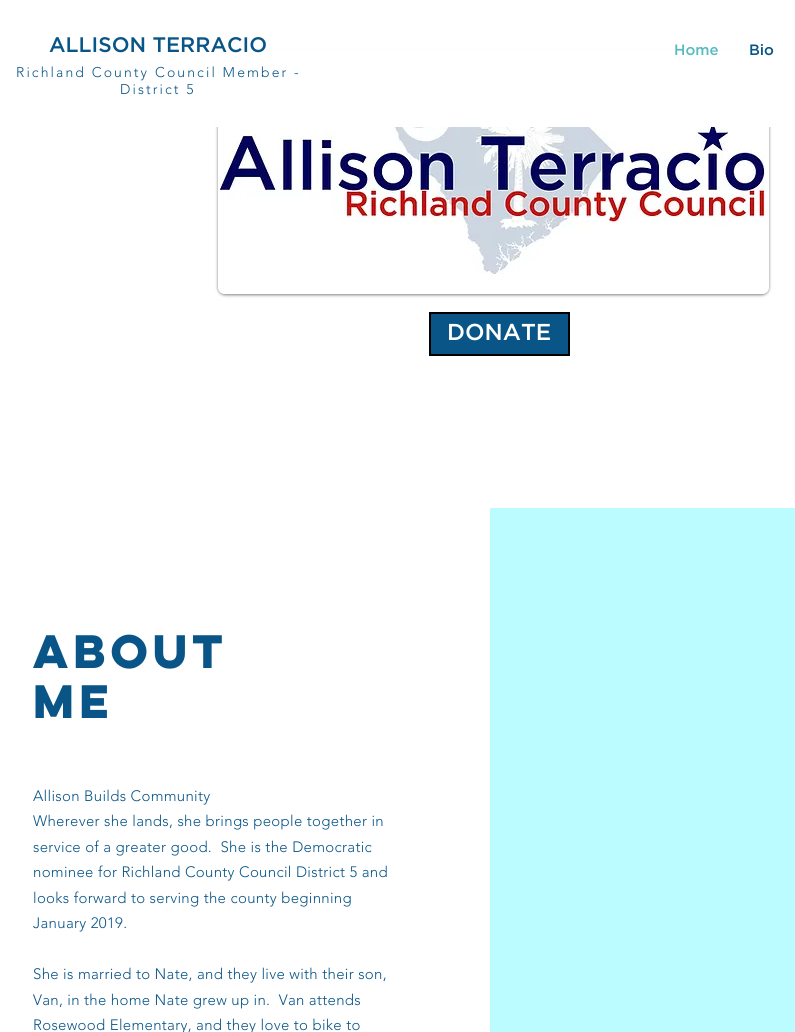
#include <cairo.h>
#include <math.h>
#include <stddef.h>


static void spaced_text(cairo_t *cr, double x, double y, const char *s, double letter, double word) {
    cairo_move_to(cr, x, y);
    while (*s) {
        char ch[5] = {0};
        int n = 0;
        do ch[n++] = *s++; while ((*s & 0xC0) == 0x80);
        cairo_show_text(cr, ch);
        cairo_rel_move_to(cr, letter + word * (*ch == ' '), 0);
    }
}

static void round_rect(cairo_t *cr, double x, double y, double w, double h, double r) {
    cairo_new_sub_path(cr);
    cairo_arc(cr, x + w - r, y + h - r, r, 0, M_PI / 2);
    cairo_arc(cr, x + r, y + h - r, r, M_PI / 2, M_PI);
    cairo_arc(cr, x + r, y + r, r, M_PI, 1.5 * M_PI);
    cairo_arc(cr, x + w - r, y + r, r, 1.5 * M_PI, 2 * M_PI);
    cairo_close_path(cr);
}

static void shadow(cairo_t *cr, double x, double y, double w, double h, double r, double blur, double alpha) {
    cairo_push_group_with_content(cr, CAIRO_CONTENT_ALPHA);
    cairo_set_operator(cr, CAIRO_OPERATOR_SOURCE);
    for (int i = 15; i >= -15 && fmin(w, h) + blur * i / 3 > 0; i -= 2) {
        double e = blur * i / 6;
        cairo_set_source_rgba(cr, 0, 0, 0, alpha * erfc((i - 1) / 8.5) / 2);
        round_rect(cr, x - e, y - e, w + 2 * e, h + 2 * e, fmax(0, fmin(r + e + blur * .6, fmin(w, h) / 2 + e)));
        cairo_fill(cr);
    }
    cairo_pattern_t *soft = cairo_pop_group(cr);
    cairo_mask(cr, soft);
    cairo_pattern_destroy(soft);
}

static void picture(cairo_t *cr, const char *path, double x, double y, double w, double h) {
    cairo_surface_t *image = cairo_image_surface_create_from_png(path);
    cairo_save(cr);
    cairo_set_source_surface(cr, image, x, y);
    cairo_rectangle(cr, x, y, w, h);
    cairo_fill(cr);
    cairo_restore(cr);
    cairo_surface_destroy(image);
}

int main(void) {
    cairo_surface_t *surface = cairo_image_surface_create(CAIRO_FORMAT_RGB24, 795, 1032);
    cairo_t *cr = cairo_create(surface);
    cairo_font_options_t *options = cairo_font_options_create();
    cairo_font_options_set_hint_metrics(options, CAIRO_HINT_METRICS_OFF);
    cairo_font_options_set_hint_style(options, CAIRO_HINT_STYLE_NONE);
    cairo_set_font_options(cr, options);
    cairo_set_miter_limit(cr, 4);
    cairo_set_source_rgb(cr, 1, 1, 1);
    cairo_paint(cr);
    cairo_save(cr);
    cairo_set_fill_rule(cr, CAIRO_FILL_RULE_EVEN_ODD);
    cairo_new_path(cr);
    cairo_move_to(cr, 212, 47);
    cairo_line_to(cr, 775, 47);
    cairo_line_to(cr, 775, 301);
    cairo_line_to(cr, 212, 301);
    cairo_close_path(cr);
    cairo_move_to(cr, 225, 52);
    cairo_line_to(cr, 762, 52);
    cairo_curve_to(cr, 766, 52, 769, 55, 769, 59);
    cairo_line_to(cr, 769, 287);
    cairo_curve_to(cr, 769, 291, 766, 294, 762, 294);
    cairo_line_to(cr, 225, 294);
    cairo_curve_to(cr, 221, 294, 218, 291, 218, 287);
    cairo_line_to(cr, 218, 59);
    cairo_curve_to(cr, 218, 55, 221, 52, 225, 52);
    cairo_close_path(cr);
    cairo_clip(cr);
    cairo_set_source_rgb(cr, 0, 0, 0);
    shadow(cr, 218, 53, 551, 242, 7, 1.5, 0.5);
    cairo_restore(cr);
    cairo_set_source_rgb(cr, 1, 1, 1);
    cairo_rectangle(cr, 215, 50, 557, 77);
    cairo_fill(cr);
    cairo_select_font_face(cr, "Gotham Medium", CAIRO_FONT_SLANT_NORMAL, CAIRO_FONT_WEIGHT_NORMAL);
    cairo_set_font_size(cr, 21);
    cairo_set_source_rgb(cr, 0.039, 0.333, 0.529);
    cairo_move_to(cr, 49, 52);
    cairo_show_text(cr, "ALLISON TERRACIO");
    cairo_set_font_size(cr, 15);
    cairo_set_source_rgb(cr, 0.341, 0.733, 0.749);
    cairo_move_to(cr, 674, 55);
    cairo_show_text(cr, "Home");
    cairo_set_source_rgb(cr, 0.039, 0.333, 0.529);
    cairo_move_to(cr, 749, 55);
    cairo_show_text(cr, "Bio");
    cairo_select_font_face(cr, "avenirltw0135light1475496 Light", CAIRO_FONT_SLANT_NORMAL, CAIRO_FONT_WEIGHT_NORMAL);
    cairo_set_font_size(cr, 14);
    spaced_text(cr, 16, 77, "Richland County Council Member -", 2.1, 0);
    spaced_text(cr, 120, 94, "District 5", 2.1, 0);
    picture(cr, "img1.png", 220, 127, 547, 147);
    cairo_rectangle(cr, 430, 313, 139, 42);
    cairo_fill_preserve(cr);
    cairo_set_source_rgb(cr, 0, 0, 0);
    cairo_stroke(cr);
    cairo_select_font_face(cr, "Gotham Medium", CAIRO_FONT_SLANT_NORMAL, CAIRO_FONT_WEIGHT_NORMAL);
    cairo_set_font_size(cr, 23);
    cairo_set_source_rgb(cr, 1, 1, 1);
    cairo_move_to(cr, 447, 340);
    cairo_show_text(cr, "DONATE");
    cairo_select_font_face(cr, "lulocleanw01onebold", CAIRO_FONT_SLANT_NORMAL, CAIRO_FONT_WEIGHT_BOLD);
    cairo_set_font_size(cr, 42);
    cairo_set_source_rgb(cr, 0.039, 0.333, 0.529);
    spaced_text(cr, 33, 668, "ABOUT", -4.25, 0);
    spaced_text(cr, 33, 718, "ME", -4.25, 0);
    cairo_select_font_face(cr, "avenirltw0135light1475496 Light", CAIRO_FONT_SLANT_NORMAL, CAIRO_FONT_WEIGHT_NORMAL);
    cairo_set_font_size(cr, 15);
    spaced_text(cr, 33, 801, "Allison Builds Community", 0.3, 0);
    spaced_text(cr, 33, 826, "Wherever she lands, she brings people together in", 0.3, 0);
    spaced_text(cr, 33, 852, "service of a greater good.  She is the Democratic", 0.3, 0);
    spaced_text(cr, 33, 877, "nominee for Richland County Council District 5 and", 0.3, 0);
    spaced_text(cr, 33, 903, "looks forward to serving the county beginning", 0.3, 0);
    spaced_text(cr, 33, 928, "January 2019.", 0.3, 0);
    spaced_text(cr, 33, 979, "She is married to Nate, and they live with their son,", 0.3, 0);
    spaced_text(cr, 33, 1005, "Van, in the home Nate grew up in.  Van attends", 0.3, 0);
    spaced_text(cr, 33, 1030, "Rosewood Elementary, and they love to bike to", 0.3, 0);
    cairo_set_source_rgb(cr, 0.729, 0.988, 1);
    cairo_rectangle(cr, 490, 508, 305, 524);
    cairo_fill(cr);
    cairo_surface_write_to_png(surface, "page.png");
    cairo_font_options_destroy(options);
    cairo_destroy(cr);
    cairo_surface_destroy(surface);
    return 0;
}
